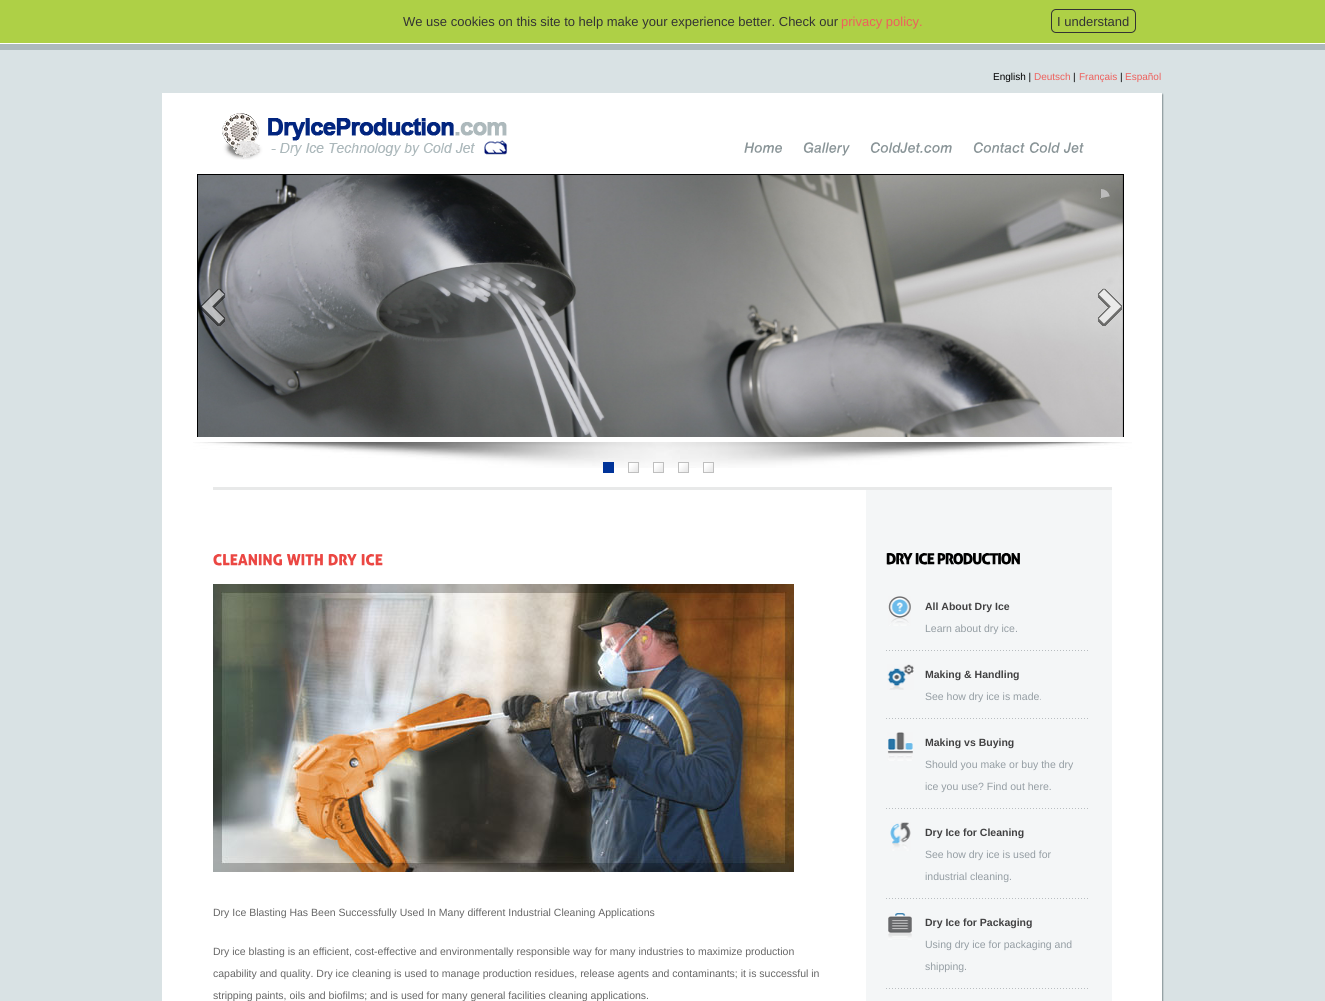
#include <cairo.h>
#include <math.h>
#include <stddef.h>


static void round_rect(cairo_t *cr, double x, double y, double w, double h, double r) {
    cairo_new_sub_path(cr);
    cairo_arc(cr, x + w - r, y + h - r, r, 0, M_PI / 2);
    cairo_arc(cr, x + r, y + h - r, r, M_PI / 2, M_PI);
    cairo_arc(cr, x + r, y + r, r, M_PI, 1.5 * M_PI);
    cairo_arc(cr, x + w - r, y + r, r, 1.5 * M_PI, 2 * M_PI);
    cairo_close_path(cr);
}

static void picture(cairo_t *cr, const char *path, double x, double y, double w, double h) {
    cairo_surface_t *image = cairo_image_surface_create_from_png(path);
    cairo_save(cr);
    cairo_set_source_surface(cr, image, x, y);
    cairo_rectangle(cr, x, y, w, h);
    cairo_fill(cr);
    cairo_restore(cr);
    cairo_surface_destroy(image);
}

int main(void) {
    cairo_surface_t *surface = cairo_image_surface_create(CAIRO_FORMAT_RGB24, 1325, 1001);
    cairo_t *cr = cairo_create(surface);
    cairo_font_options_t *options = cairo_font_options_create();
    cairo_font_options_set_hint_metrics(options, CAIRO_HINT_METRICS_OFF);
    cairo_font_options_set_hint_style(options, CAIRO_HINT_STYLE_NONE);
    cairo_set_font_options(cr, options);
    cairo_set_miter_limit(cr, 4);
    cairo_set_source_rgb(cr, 1, 1, 1);
    cairo_paint(cr);
    cairo_set_source_rgb(cr, 0.682, 0.816, 0.275);
    cairo_rectangle(cr, 0, 0, 1325, 43);
    cairo_fill(cr);
    cairo_select_font_face(cr, "Liberation Sans", CAIRO_FONT_SLANT_NORMAL, CAIRO_FONT_WEIGHT_NORMAL);
    cairo_set_font_size(cr, 13);
    cairo_set_source_rgb(cr, 0.2, 0.2, 0.2);
    cairo_move_to(cr, 403, 26);
    cairo_show_text(cr, "We use cookies on this site to help make your experience better. Check our");
    cairo_set_source_rgb(cr, 0.933, 0.376, 0.361);
    cairo_move_to(cr, 841, 26);
    cairo_show_text(cr, "privacy policy.");
    round_rect(cr, 1051.5, 9.5, 84, 23, 4.5);
    cairo_set_source_rgb(cr, 0.2, 0.2, 0.2);
    cairo_set_line_width(cr, 1);
    cairo_stroke(cr);
    cairo_move_to(cr, 1057, 26);
    cairo_show_text(cr, "I understand");
    cairo_set_source_rgb(cr, 0.851, 0.886, 0.894);
    cairo_rectangle(cr, 0, 50, 1325, 951);
    cairo_fill(cr);
    cairo_set_source_rgb(cr, 0.678, 0.725, 0.737);
    cairo_rectangle(cr, 0, 44, 1325, 6);
    cairo_fill(cr);
    cairo_set_source_rgb(cr, 1, 1, 1);
    cairo_rectangle(cr, 162, 93, 1000, 394);
    cairo_fill(cr);
    picture(cr, "img1.png", 1162, 93, 2, 394);
    cairo_set_font_size(cr, 10);
    cairo_set_source_rgb(cr, 0, 0, 0);
    cairo_move_to(cr, 993, 80);
    cairo_show_text(cr, "English |");
    cairo_set_source_rgb(cr, 0.933, 0.376, 0.361);
    cairo_move_to(cr, 1034, 80);
    cairo_show_text(cr, "Deutsch");
    cairo_set_source_rgb(cr, 0, 0, 0);
    cairo_move_to(cr, 1073, 80);
    cairo_show_text(cr, "|");
    cairo_set_source_rgb(cr, 0.933, 0.376, 0.361);
    cairo_move_to(cr, 1079, 80);
    cairo_show_text(cr, "Français");
    cairo_set_source_rgb(cr, 0, 0, 0);
    cairo_move_to(cr, 1120, 80);
    cairo_show_text(cr, "|");
    cairo_set_source_rgb(cr, 0.933, 0.376, 0.361);
    cairo_move_to(cr, 1125, 80);
    cairo_show_text(cr, "Español");
    picture(cr, "img2.png", 222, 113, 286, 47);
    picture(cr, "img3.png", 744, 142, 38, 11);
    picture(cr, "img4.png", 803, 142, 47, 14);
    picture(cr, "img5.png", 870, 142, 82, 11);
    picture(cr, "img6.png", 973, 142, 52, 11);
    picture(cr, "img7.png", 1029, 142, 31, 11);
    picture(cr, "img8.png", 1063, 142, 21, 11);
    cairo_set_source_rgb(cr, 0, 0, 0);
    cairo_rectangle(cr, 197, 174, 927, 263);
    cairo_fill(cr);
    picture(cr, "img9.png", 198, 175, 925, 262);
    picture(cr, "img10.png", 1100, 189, 10, 10);
    picture(cr, "img11.png", 201, 288, 25, 38);
    picture(cr, "img12.png", 1097, 288, 26, 38);
    picture(cr, "img14.png", 193, 442, 939, 26);
    cairo_set_source_rgb(cr, 0, 0.2, 0.6);
    cairo_rectangle(cr, 603, 462, 11, 11);
    cairo_fill(cr);
    picture(cr, "img13.png", 628, 462, 11, 11);
    picture(cr, "img13.png", 653, 462, 11, 11);
    picture(cr, "img13.png", 678, 462, 11, 11);
    picture(cr, "img13.png", 703, 462, 11, 11);
    picture(cr, "img15.png", 162, 487, 1002, 514);
    cairo_set_source_rgb(cr, 0.91, 0.914, 0.914);
    cairo_rectangle(cr, 213, 487, 899, 3);
    cairo_fill(cr);
    picture(cr, "img16.png", 213, 554, 69, 12);
    picture(cr, "img17.png", 286, 554, 37, 12);
    picture(cr, "img18.png", 328, 554, 29, 12);
    picture(cr, "img19.png", 361, 554, 22, 12);
    picture(cr, "img20.png", 213, 584, 581, 288);
    cairo_set_font_size(cr, 10.5);
    cairo_set_source_rgb(cr, 0.4, 0.4, 0.4);
    cairo_move_to(cr, 213, 916);
    cairo_show_text(cr, "Dry Ice Blasting Has Been Successfully Used In Many different Industrial Cleaning Applications");
    cairo_move_to(cr, 213, 955);
    cairo_show_text(cr, "Dry ice blasting is an efficient, cost-effective and environmentally responsible way for many industries to maximize production");
    cairo_move_to(cr, 213, 977);
    cairo_show_text(cr, "capability and quality. Dry ice cleaning is used to manage production residues, release agents and contaminants; it is successful in");
    cairo_move_to(cr, 213, 999);
    cairo_show_text(cr, "stripping paints, oils and biofilms; and is used for many general facilities cleaning applications.");
    cairo_set_source_rgb(cr, 0.957, 0.961, 0.965);
    cairo_rectangle(cr, 866, 490, 246, 511);
    cairo_fill(cr);
    picture(cr, "img21.png", 886, 553, 27, 12);
    picture(cr, "img22.png", 915, 553, 20, 12);
    picture(cr, "img23.png", 937, 553, 83, 12);
    picture(cr, "img24.png", 886, 650, 202, 1);
    picture(cr, "img25.png", 888, 596, 23, 30);
    cairo_select_font_face(cr, "Liberation Sans", CAIRO_FONT_SLANT_NORMAL, CAIRO_FONT_WEIGHT_BOLD);
    cairo_set_source_rgb(cr, 0.255, 0.255, 0.259);
    cairo_move_to(cr, 925, 610);
    cairo_show_text(cr, "All About Dry Ice");
    cairo_select_font_face(cr, "Liberation Sans", CAIRO_FONT_SLANT_NORMAL, CAIRO_FONT_WEIGHT_NORMAL);
    cairo_set_source_rgb(cr, 0.58, 0.616, 0.639);
    cairo_move_to(cr, 925, 632);
    cairo_show_text(cr, "Learn about dry ice.");
    picture(cr, "img24.png", 886, 718, 202, 1);
    picture(cr, "img26.png", 887, 664, 27, 26);
    cairo_select_font_face(cr, "Liberation Sans", CAIRO_FONT_SLANT_NORMAL, CAIRO_FONT_WEIGHT_BOLD);
    cairo_set_source_rgb(cr, 0.255, 0.255, 0.259);
    cairo_move_to(cr, 925, 678);
    cairo_show_text(cr, "Making & Handling");
    cairo_select_font_face(cr, "Liberation Sans", CAIRO_FONT_SLANT_NORMAL, CAIRO_FONT_WEIGHT_NORMAL);
    cairo_set_source_rgb(cr, 0.58, 0.616, 0.639);
    cairo_move_to(cr, 925, 700);
    cairo_show_text(cr, "See how dry ice is made.");
    picture(cr, "img24.png", 886, 808, 202, 1);
    picture(cr, "img27.png", 887, 732, 26, 29);
    cairo_select_font_face(cr, "Liberation Sans", CAIRO_FONT_SLANT_NORMAL, CAIRO_FONT_WEIGHT_BOLD);
    cairo_set_source_rgb(cr, 0.255, 0.255, 0.259);
    cairo_move_to(cr, 925, 746);
    cairo_show_text(cr, "Making vs Buying");
    cairo_select_font_face(cr, "Liberation Sans", CAIRO_FONT_SLANT_NORMAL, CAIRO_FONT_WEIGHT_NORMAL);
    cairo_set_source_rgb(cr, 0.58, 0.616, 0.639);
    cairo_move_to(cr, 925, 768);
    cairo_show_text(cr, "Should you make or buy the dry");
    cairo_move_to(cr, 925, 790);
    cairo_show_text(cr, "ice you use? Find out here.");
    picture(cr, "img24.png", 886, 898, 202, 1);
    picture(cr, "img28.png", 890, 822, 21, 29);
    cairo_select_font_face(cr, "Liberation Sans", CAIRO_FONT_SLANT_NORMAL, CAIRO_FONT_WEIGHT_BOLD);
    cairo_set_source_rgb(cr, 0.255, 0.255, 0.259);
    cairo_move_to(cr, 925, 836);
    cairo_show_text(cr, "Dry Ice for Cleaning");
    cairo_select_font_face(cr, "Liberation Sans", CAIRO_FONT_SLANT_NORMAL, CAIRO_FONT_WEIGHT_NORMAL);
    cairo_set_source_rgb(cr, 0.58, 0.616, 0.639);
    cairo_move_to(cr, 925, 858);
    cairo_show_text(cr, "See how dry ice is used for");
    cairo_move_to(cr, 925, 880);
    cairo_show_text(cr, "industrial cleaning.");
    picture(cr, "img24.png", 886, 988, 202, 1);
    picture(cr, "img29.png", 888, 913, 24, 27);
    cairo_select_font_face(cr, "Liberation Sans", CAIRO_FONT_SLANT_NORMAL, CAIRO_FONT_WEIGHT_BOLD);
    cairo_set_source_rgb(cr, 0.255, 0.255, 0.259);
    cairo_move_to(cr, 925, 926);
    cairo_show_text(cr, "Dry Ice for Packaging");
    cairo_select_font_face(cr, "Liberation Sans", CAIRO_FONT_SLANT_NORMAL, CAIRO_FONT_WEIGHT_NORMAL);
    cairo_set_source_rgb(cr, 0.58, 0.616, 0.639);
    cairo_move_to(cr, 925, 948);
    cairo_show_text(cr, "Using dry ice for packaging and");
    cairo_move_to(cr, 925, 970);
    cairo_show_text(cr, "shipping.");
    cairo_surface_write_to_png(surface, "page.png");
    cairo_font_options_destroy(options);
    cairo_destroy(cr);
    cairo_surface_destroy(surface);
    return 0;
}
